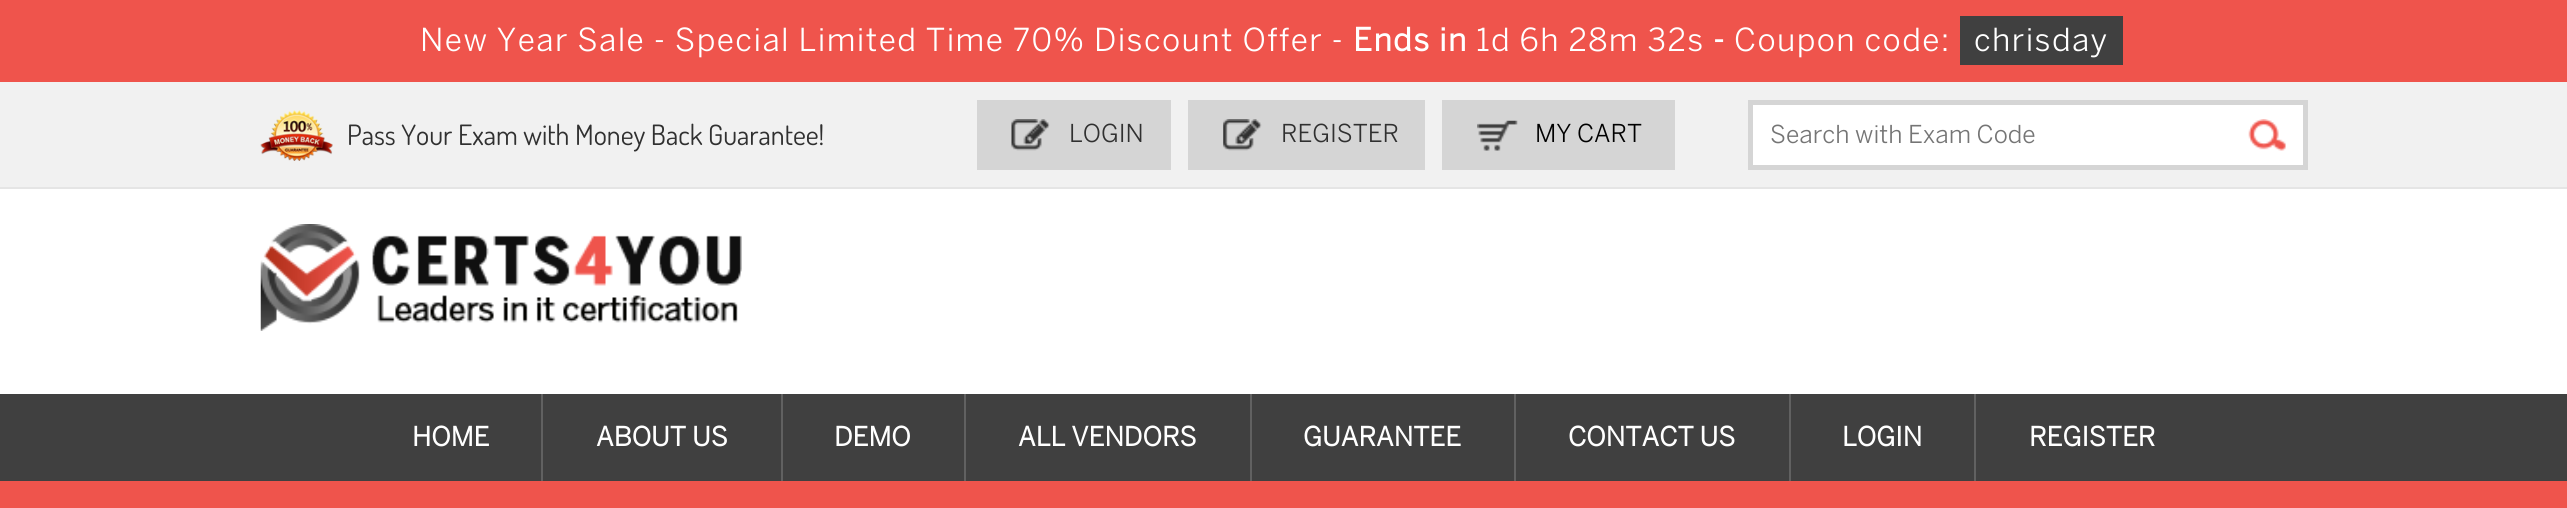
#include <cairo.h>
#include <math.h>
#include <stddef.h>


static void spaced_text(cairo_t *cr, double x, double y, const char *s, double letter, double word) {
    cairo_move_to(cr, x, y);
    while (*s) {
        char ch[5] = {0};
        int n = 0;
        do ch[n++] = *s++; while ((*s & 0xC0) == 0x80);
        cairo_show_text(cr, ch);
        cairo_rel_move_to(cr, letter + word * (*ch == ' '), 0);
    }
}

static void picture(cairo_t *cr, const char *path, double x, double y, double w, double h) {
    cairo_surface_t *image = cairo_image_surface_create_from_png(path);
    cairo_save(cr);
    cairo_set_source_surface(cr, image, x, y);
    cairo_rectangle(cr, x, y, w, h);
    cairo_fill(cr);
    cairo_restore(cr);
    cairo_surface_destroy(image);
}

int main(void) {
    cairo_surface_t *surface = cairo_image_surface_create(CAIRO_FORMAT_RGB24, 2567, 508);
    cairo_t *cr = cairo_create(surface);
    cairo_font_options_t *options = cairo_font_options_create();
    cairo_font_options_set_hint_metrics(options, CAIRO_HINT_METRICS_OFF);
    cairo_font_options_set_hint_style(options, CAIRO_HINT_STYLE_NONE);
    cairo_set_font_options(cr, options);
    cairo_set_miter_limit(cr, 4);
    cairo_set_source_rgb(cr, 1, 1, 1);
    cairo_paint(cr);
    cairo_set_source_rgb(cr, 0.937, 0.329, 0.298);
    cairo_rectangle(cr, 0, 0, 2567, 82);
    cairo_fill(cr);
    cairo_select_font_face(cr, "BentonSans", CAIRO_FONT_SLANT_NORMAL, CAIRO_FONT_WEIGHT_NORMAL);
    cairo_set_font_size(cr, 31.5);
    cairo_set_source_rgb(cr, 1, 1, 1);
    spaced_text(cr, 420, 51, "New Year Sale - Special Limited Time 70% Discount Offer -", 1.4, 0);
    cairo_select_font_face(cr, "BentonSans", CAIRO_FONT_SLANT_NORMAL, CAIRO_FONT_WEIGHT_BOLD);
    spaced_text(cr, 1353, 51, "Ends in", 1.4, 0);
    cairo_select_font_face(cr, "BentonSans", CAIRO_FONT_SLANT_NORMAL, CAIRO_FONT_WEIGHT_NORMAL);
    spaced_text(cr, 1476, 51, "1d 6h 28m 32s", 1.4, 0);
    cairo_select_font_face(cr, "BentonSans", CAIRO_FONT_SLANT_NORMAL, CAIRO_FONT_WEIGHT_BOLD);
    spaced_text(cr, 1713, 51, "-", 1.4, 0);
    cairo_select_font_face(cr, "BentonSans", CAIRO_FONT_SLANT_NORMAL, CAIRO_FONT_WEIGHT_NORMAL);
    spaced_text(cr, 1734, 51, "Coupon code:", 1.4, 0);
    cairo_set_source_rgb(cr, 0.251, 0.251, 0.251);
    cairo_rectangle(cr, 1960, 16, 163, 49);
    cairo_fill(cr);
    cairo_set_source_rgb(cr, 1, 1, 1);
    spaced_text(cr, 1974, 51, "chrisday", 1.4, 0);
    cairo_set_source_rgb(cr, 0.945, 0.945, 0.945);
    cairo_rectangle(cr, 0, 82, 2567, 105);
    cairo_fill(cr);
    cairo_set_source_rgb(cr, 0.898, 0.898, 0.898);
    cairo_rectangle(cr, 0, 187, 2567, 2);
    cairo_fill(cr);
    picture(cr, "img1.png", 260, 110, 73, 51);
    cairo_select_font_face(cr, "Dosis", CAIRO_FONT_SLANT_NORMAL, CAIRO_FONT_WEIGHT_NORMAL);
    cairo_set_font_size(cr, 28);
    cairo_set_source_rgb(cr, 0.188, 0.188, 0.188);
    cairo_move_to(cr, 347, 145);
    cairo_show_text(cr, "Pass Your Exam with Money Back Guarantee!");
    cairo_set_source_rgb(cr, 0.835, 0.835, 0.835);
    cairo_rectangle(cr, 977, 100, 194, 70);
    cairo_fill(cr);
    picture(cr, "img2.png", 1011, 119, 39, 32);
    cairo_select_font_face(cr, "BentonSans", CAIRO_FONT_SLANT_NORMAL, CAIRO_FONT_WEIGHT_NORMAL);
    cairo_set_font_size(cr, 24.5);
    cairo_set_source_rgb(cr, 0.188, 0.188, 0.188);
    cairo_move_to(cr, 1069, 142);
    cairo_show_text(cr, "LOGIN");
    cairo_set_source_rgb(cr, 0.835, 0.835, 0.835);
    cairo_rectangle(cr, 1188, 100, 237, 70);
    cairo_fill(cr);
    picture(cr, "img3.png", 1223, 119, 39, 32);
    cairo_set_source_rgb(cr, 0.188, 0.188, 0.188);
    cairo_move_to(cr, 1281, 142);
    cairo_show_text(cr, "REGISTER");
    cairo_set_source_rgb(cr, 0.835, 0.835, 0.835);
    cairo_rectangle(cr, 1442, 100, 233, 70);
    cairo_fill(cr);
    picture(cr, "img4.png", 1477, 120, 41, 31);
    cairo_set_source_rgb(cr, 0, 0, 0);
    cairo_move_to(cr, 1535, 142);
    cairo_show_text(cr, "MY CART");
    cairo_set_source_rgb(cr, 1, 1, 1);
    cairo_rectangle(cr, 1750.5, 102.5, 555, 65);
    cairo_fill_preserve(cr);
    cairo_set_source_rgb(cr, 0.835, 0.835, 0.835);
    cairo_set_line_width(cr, 5);
    cairo_stroke(cr);
    cairo_set_source_rgb(cr, 0.459, 0.459, 0.459);
    cairo_move_to(cr, 1770, 143);
    cairo_show_text(cr, "Search with Exam Code");
    picture(cr, "img5.png", 2248, 119, 38, 32);
    picture(cr, "img6.png", 260, 224, 482, 107);
    cairo_set_source_rgb(cr, 0.251, 0.251, 0.251);
    cairo_rectangle(cr, 0, 394, 2567, 87);
    cairo_fill(cr);
    cairo_select_font_face(cr, "BentonSans", CAIRO_FONT_SLANT_NORMAL, CAIRO_FONT_WEIGHT_BOLD);
    cairo_set_font_size(cr, 26.25);
    cairo_set_source_rgb(cr, 1, 1, 1);
    cairo_move_to(cr, 412, 446);
    cairo_show_text(cr, "HOME");
    cairo_set_source_rgb(cr, 0.38, 0.38, 0.38);
    cairo_rectangle(cr, 541, 394, 2, 87);
    cairo_fill(cr);
    cairo_set_source_rgb(cr, 1, 1, 1);
    cairo_move_to(cr, 596, 446);
    cairo_show_text(cr, "ABOUT US");
    cairo_set_source_rgb(cr, 0.38, 0.38, 0.38);
    cairo_rectangle(cr, 781, 394, 2, 87);
    cairo_fill(cr);
    cairo_set_source_rgb(cr, 1, 1, 1);
    cairo_move_to(cr, 834, 446);
    cairo_show_text(cr, "DEMO");
    cairo_set_source_rgb(cr, 0.38, 0.38, 0.38);
    cairo_rectangle(cr, 964, 394, 2, 87);
    cairo_fill(cr);
    cairo_set_source_rgb(cr, 1, 1, 1);
    cairo_move_to(cr, 1018, 446);
    cairo_show_text(cr, "ALL VENDORS");
    cairo_set_source_rgb(cr, 0.38, 0.38, 0.38);
    cairo_rectangle(cr, 1250, 394, 2, 87);
    cairo_fill(cr);
    cairo_set_source_rgb(cr, 1, 1, 1);
    cairo_move_to(cr, 1303, 446);
    cairo_show_text(cr, "GUARANTEE");
    cairo_set_source_rgb(cr, 0.38, 0.38, 0.38);
    cairo_rectangle(cr, 1514, 394, 2, 87);
    cairo_fill(cr);
    cairo_set_source_rgb(cr, 1, 1, 1);
    cairo_move_to(cr, 1568, 446);
    cairo_show_text(cr, "CONTACT US");
    cairo_set_source_rgb(cr, 0.38, 0.38, 0.38);
    cairo_rectangle(cr, 1789, 394, 2, 87);
    cairo_fill(cr);
    cairo_set_source_rgb(cr, 1, 1, 1);
    cairo_move_to(cr, 1842, 446);
    cairo_show_text(cr, "LOGIN");
    cairo_set_source_rgb(cr, 0.38, 0.38, 0.38);
    cairo_rectangle(cr, 1974, 394, 2, 87);
    cairo_fill(cr);
    cairo_set_source_rgb(cr, 1, 1, 1);
    cairo_move_to(cr, 2029, 446);
    cairo_show_text(cr, "REGISTER");
    cairo_set_source_rgb(cr, 0.937, 0.329, 0.298);
    cairo_rectangle(cr, 0, 481, 2567, 27);
    cairo_fill(cr);
    cairo_surface_write_to_png(surface, "page.png");
    cairo_font_options_destroy(options);
    cairo_destroy(cr);
    cairo_surface_destroy(surface);
    return 0;
}
